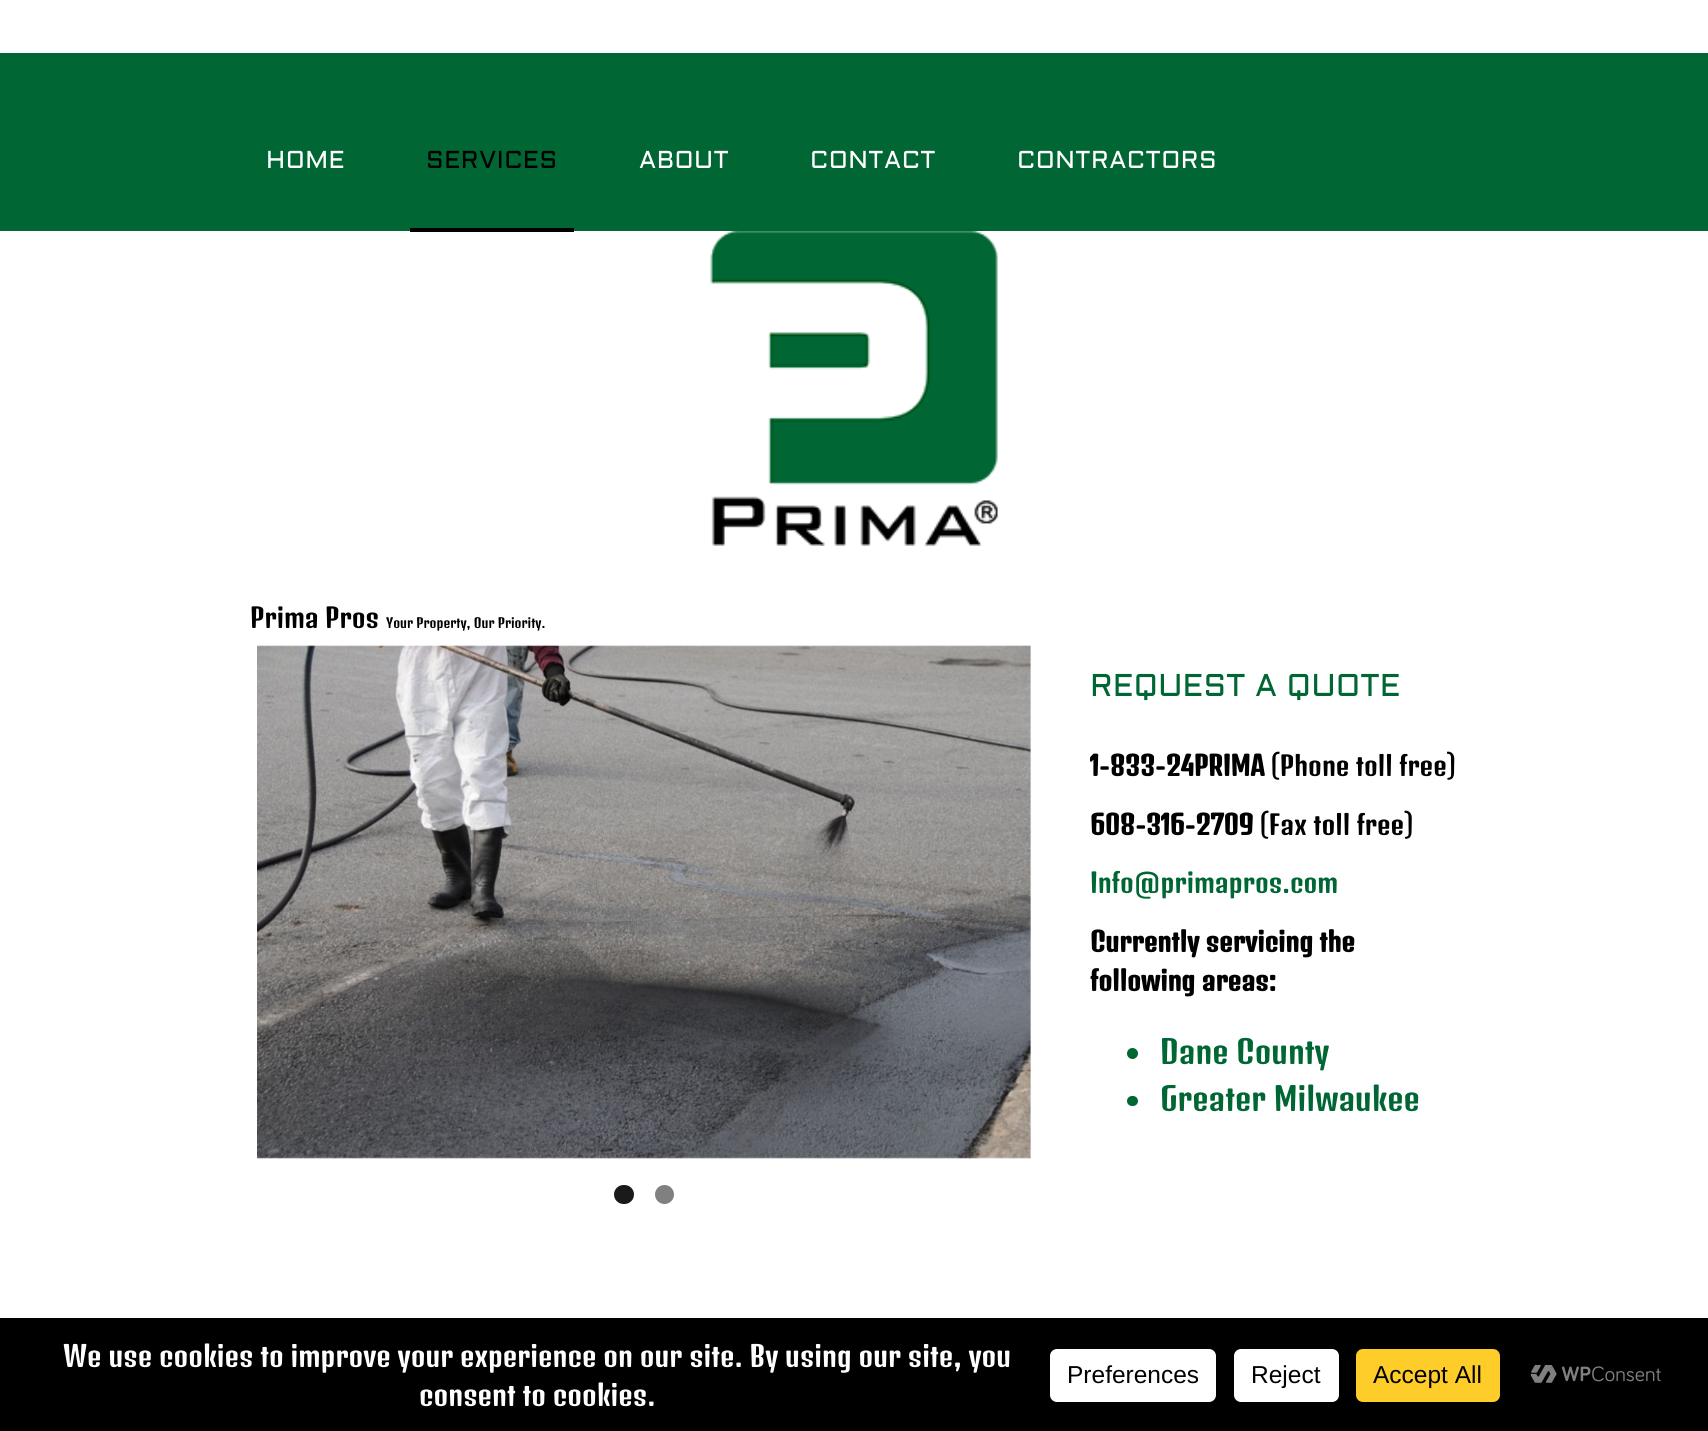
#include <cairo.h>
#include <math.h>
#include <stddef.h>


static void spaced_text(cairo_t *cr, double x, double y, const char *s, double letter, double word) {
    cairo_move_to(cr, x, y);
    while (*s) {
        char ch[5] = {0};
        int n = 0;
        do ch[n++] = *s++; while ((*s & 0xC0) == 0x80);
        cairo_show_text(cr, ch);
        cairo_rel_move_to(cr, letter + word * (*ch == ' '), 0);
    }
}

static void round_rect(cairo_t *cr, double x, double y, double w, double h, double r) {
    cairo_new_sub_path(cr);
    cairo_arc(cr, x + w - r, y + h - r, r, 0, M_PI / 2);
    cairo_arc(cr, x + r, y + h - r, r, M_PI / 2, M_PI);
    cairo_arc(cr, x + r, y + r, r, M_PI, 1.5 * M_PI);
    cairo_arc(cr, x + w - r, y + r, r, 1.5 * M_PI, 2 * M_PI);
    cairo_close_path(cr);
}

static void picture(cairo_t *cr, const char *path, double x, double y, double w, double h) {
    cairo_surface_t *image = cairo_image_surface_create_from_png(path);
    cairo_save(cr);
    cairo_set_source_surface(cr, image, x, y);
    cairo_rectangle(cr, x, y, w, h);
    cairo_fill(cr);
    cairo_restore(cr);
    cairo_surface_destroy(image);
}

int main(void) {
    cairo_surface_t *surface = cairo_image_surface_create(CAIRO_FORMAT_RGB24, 1708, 1431);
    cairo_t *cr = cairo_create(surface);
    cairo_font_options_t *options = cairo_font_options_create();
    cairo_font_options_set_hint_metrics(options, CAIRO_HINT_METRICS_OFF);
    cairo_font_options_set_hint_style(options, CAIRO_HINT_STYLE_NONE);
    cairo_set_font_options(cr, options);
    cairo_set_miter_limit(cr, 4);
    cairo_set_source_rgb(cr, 1, 1, 1);
    cairo_paint(cr);
    cairo_set_source_rgb(cr, 0, 0.4, 0.2);
    cairo_rectangle(cr, 0, 53, 1708, 178);
    cairo_fill(cr);
    cairo_select_font_face(cr, "Aldrich", CAIRO_FONT_SLANT_NORMAL, CAIRO_FONT_WEIGHT_NORMAL);
    cairo_set_font_size(cr, 24.5);
    cairo_set_source_rgb(cr, 1, 1, 1);
    spaced_text(cr, 266, 168, "HOME", 0.5, 0);
    cairo_set_source_rgb(cr, 0, 0, 0);
    spaced_text(cr, 426, 168, "SERVICES", 0.5, 0);
    cairo_rectangle(cr, 410, 228, 164, 4);
    cairo_fill(cr);
    cairo_set_source_rgb(cr, 1, 1, 1);
    spaced_text(cr, 639, 168, "ABOUT", 0.5, 0);
    spaced_text(cr, 810, 168, "CONTACT", 0.5, 0);
    spaced_text(cr, 1017, 168, "CONTRACTORS", 0.5, 0);
    picture(cr, "img1.png", 710, 231, 288, 315);
    cairo_select_font_face(cr, "Denk One", CAIRO_FONT_SLANT_NORMAL, CAIRO_FONT_WEIGHT_NORMAL);
    cairo_set_font_size(cr, 26.25);
    cairo_set_source_rgb(cr, 0, 0, 0);
    cairo_move_to(cr, 250, 628);
    cairo_show_text(cr, "Prima Pros");
    cairo_set_font_size(cr, 13.1);
    cairo_move_to(cr, 386, 628);
    cairo_show_text(cr, "Your Property, Our Priority.");
    picture(cr, "img2.png", 257, 645, 774, 514);
    cairo_set_source_rgb(cr, 0.102, 0.102, 0.102);
    round_rect(cr, 614, 1185, 20, 19, 9.5);
    cairo_fill(cr);
    cairo_set_source_rgb(cr, 0.502, 0.502, 0.502);
    cairo_arc(cr, 664.5, 1194.5, 9.5, 0, 2 * M_PI);
    cairo_fill(cr);
    cairo_select_font_face(cr, "Aldrich", CAIRO_FONT_SLANT_NORMAL, CAIRO_FONT_WEIGHT_NORMAL);
    cairo_set_font_size(cr, 31.5);
    cairo_set_source_rgb(cr, 0, 0.4, 0.2);
    cairo_move_to(cr, 1090, 696);
    cairo_show_text(cr, "REQUEST A QUOTE");
    cairo_select_font_face(cr, "Denk One", CAIRO_FONT_SLANT_NORMAL, CAIRO_FONT_WEIGHT_BOLD);
    cairo_set_font_size(cr, 26.25);
    cairo_set_source_rgb(cr, 0, 0, 0);
    cairo_move_to(cr, 1090, 776);
    cairo_show_text(cr, "1-833-24PRIMA");
    cairo_select_font_face(cr, "Denk One", CAIRO_FONT_SLANT_NORMAL, CAIRO_FONT_WEIGHT_NORMAL);
    cairo_move_to(cr, 1271, 776);
    cairo_show_text(cr, "(Phone toll free)");
    cairo_select_font_face(cr, "Denk One", CAIRO_FONT_SLANT_NORMAL, CAIRO_FONT_WEIGHT_BOLD);
    cairo_move_to(cr, 1090, 835);
    cairo_show_text(cr, "608-316-2709");
    cairo_select_font_face(cr, "Denk One", CAIRO_FONT_SLANT_NORMAL, CAIRO_FONT_WEIGHT_NORMAL);
    cairo_move_to(cr, 1260, 835);
    cairo_show_text(cr, "(Fax toll free)");
    cairo_set_source_rgb(cr, 0, 0.4, 0.2);
    cairo_move_to(cr, 1090, 893);
    cairo_show_text(cr, "Info@primapros.com");
    cairo_select_font_face(cr, "Denk One", CAIRO_FONT_SLANT_NORMAL, CAIRO_FONT_WEIGHT_BOLD);
    cairo_set_source_rgb(cr, 0, 0, 0);
    cairo_move_to(cr, 1090, 952);
    cairo_show_text(cr, "Currently servicing the");
    cairo_move_to(cr, 1090, 991);
    cairo_show_text(cr, "following areas:");
    cairo_set_source_rgb(cr, 0, 0.4, 0.2);
    cairo_new_path(cr);
    cairo_arc(cr, 1132.5, 1053.5, 5.5, 0, 2 * M_PI);
    cairo_fill(cr);
    cairo_select_font_face(cr, "Denk One", CAIRO_FONT_SLANT_NORMAL, CAIRO_FONT_WEIGHT_NORMAL);
    cairo_set_font_size(cr, 31.5);
    cairo_move_to(cr, 1160, 1064);
    cairo_show_text(cr, "Dane County");
    round_rect(cr, 1127, 1096, 11, 10, 5);
    cairo_fill(cr);
    cairo_move_to(cr, 1160, 1111);
    cairo_show_text(cr, "Greater Milwaukee");
    cairo_set_source_rgb(cr, 0, 0, 0);
    cairo_rectangle(cr, 0, 1318, 1708, 113);
    cairo_fill(cr);
    cairo_set_font_size(cr, 28);
    cairo_set_source_rgb(cr, 1, 1, 1);
    cairo_move_to(cr, 63, 1367);
    cairo_show_text(cr, "We use cookies to improve your experience on our site. By using our site, you");
    cairo_move_to(cr, 419, 1406);
    cairo_show_text(cr, "consent to cookies.");
    round_rect(cr, 1050, 1349, 166, 53, 7);
    cairo_fill(cr);
    cairo_select_font_face(cr, "Liberation Sans", CAIRO_FONT_SLANT_NORMAL, CAIRO_FONT_WEIGHT_NORMAL);
    cairo_set_font_size(cr, 24.5);
    cairo_set_source_rgb(cr, 0, 0, 0);
    cairo_move_to(cr, 1067, 1383);
    cairo_show_text(cr, "Preferences");
    cairo_set_source_rgb(cr, 1, 1, 1);
    round_rect(cr, 1234, 1349, 105, 53, 7);
    cairo_fill(cr);
    cairo_set_source_rgb(cr, 0, 0, 0);
    cairo_move_to(cr, 1251, 1383);
    cairo_show_text(cr, "Reject");
    cairo_set_source_rgb(cr, 1, 0.804, 0.165);
    round_rect(cr, 1356, 1349, 144, 53, 7);
    cairo_fill(cr);
    cairo_set_source_rgb(cr, 0, 0, 0);
    cairo_move_to(cr, 1373, 1383);
    cairo_show_text(cr, "Accept All");
    picture(cr, "img3.png", 1530, 1365, 131, 18);
    cairo_surface_write_to_png(surface, "page.png");
    cairo_font_options_destroy(options);
    cairo_destroy(cr);
    cairo_surface_destroy(surface);
    return 0;
}
